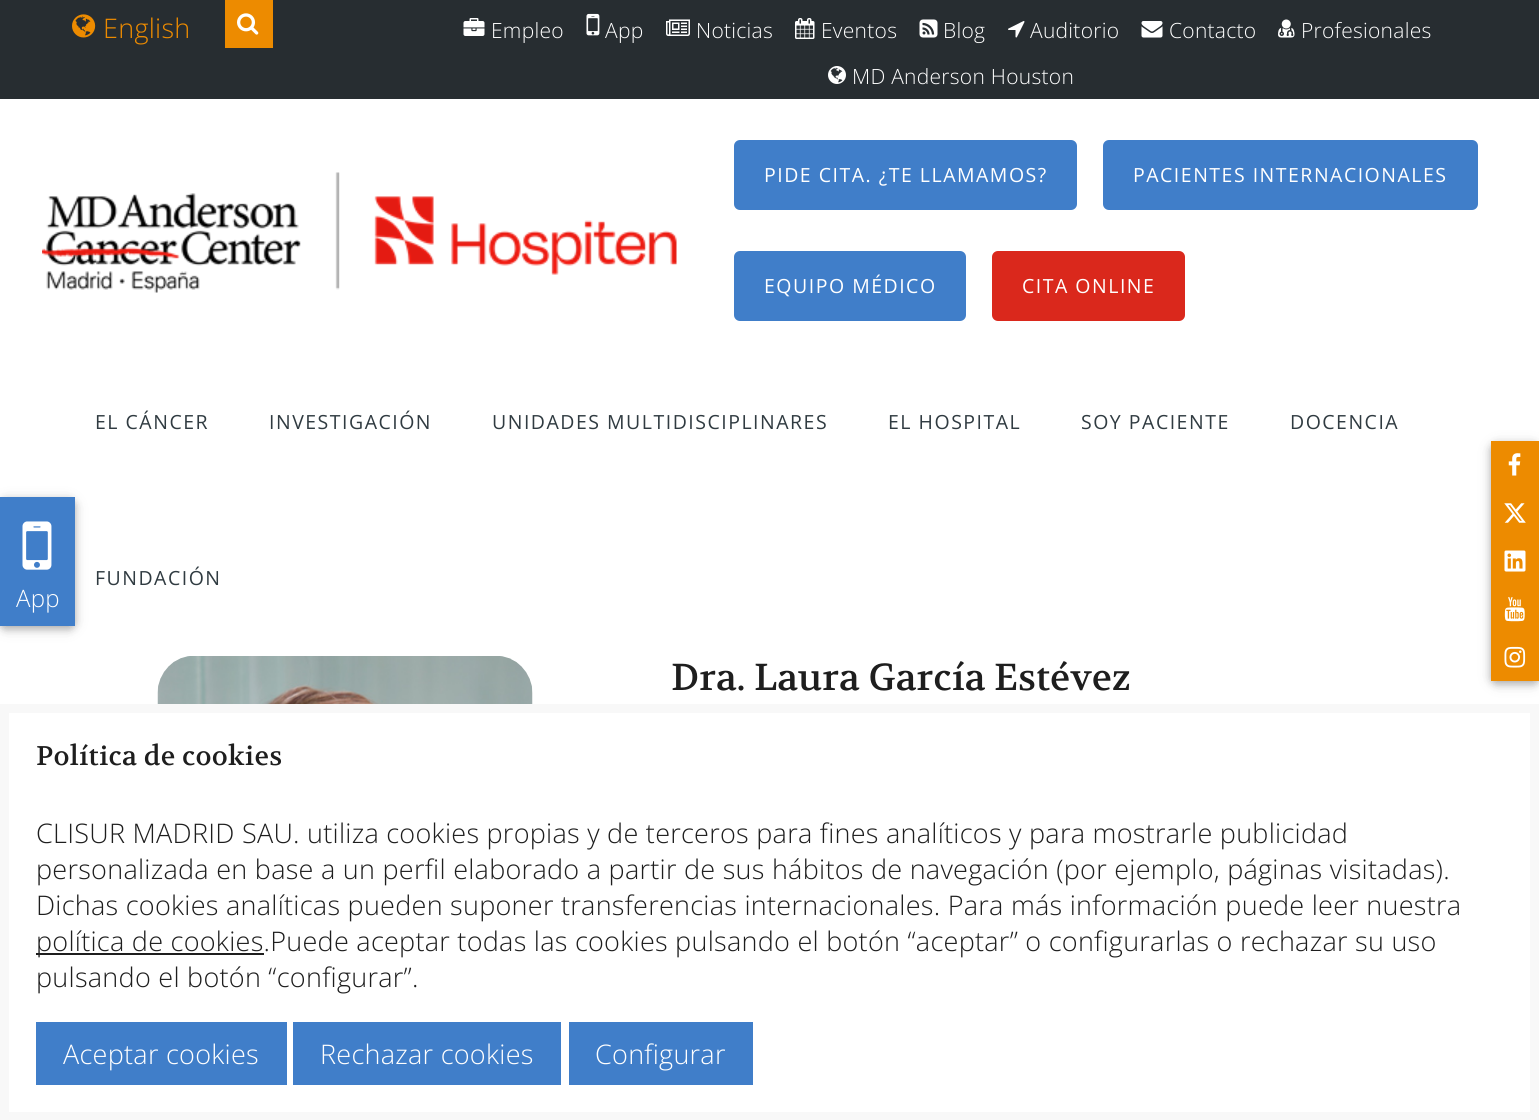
#include <cairo.h>
#include <math.h>
#include <stddef.h>


static void spaced_text(cairo_t *cr, double x, double y, const char *s, double letter, double word) {
    cairo_move_to(cr, x, y);
    while (*s) {
        char ch[5] = {0};
        int n = 0;
        do ch[n++] = *s++; while ((*s & 0xC0) == 0x80);
        cairo_show_text(cr, ch);
        cairo_rel_move_to(cr, letter + word * (*ch == ' '), 0);
    }
}

static void round_rect(cairo_t *cr, double x, double y, double w, double h, double r) {
    cairo_new_sub_path(cr);
    cairo_arc(cr, x + w - r, y + h - r, r, 0, M_PI / 2);
    cairo_arc(cr, x + r, y + h - r, r, M_PI / 2, M_PI);
    cairo_arc(cr, x + r, y + r, r, M_PI, 1.5 * M_PI);
    cairo_arc(cr, x + w - r, y + r, r, 1.5 * M_PI, 2 * M_PI);
    cairo_close_path(cr);
}

static void shadow(cairo_t *cr, double x, double y, double w, double h, double r, double blur, double alpha) {
    cairo_push_group_with_content(cr, CAIRO_CONTENT_ALPHA);
    cairo_set_operator(cr, CAIRO_OPERATOR_SOURCE);
    for (int i = 15; i >= -15 && fmin(w, h) + blur * i / 3 > 0; i -= 2) {
        double e = blur * i / 6;
        cairo_set_source_rgba(cr, 0, 0, 0, alpha * erfc((i - 1) / 8.5) / 2);
        round_rect(cr, x - e, y - e, w + 2 * e, h + 2 * e, fmax(0, fmin(r + e + blur * .6, fmin(w, h) / 2 + e)));
        cairo_fill(cr);
    }
    cairo_pattern_t *soft = cairo_pop_group(cr);
    cairo_mask(cr, soft);
    cairo_pattern_destroy(soft);
}

static void picture(cairo_t *cr, const char *path, double x, double y, double w, double h) {
    cairo_surface_t *image = cairo_image_surface_create_from_png(path);
    cairo_save(cr);
    cairo_set_source_surface(cr, image, x, y);
    cairo_rectangle(cr, x, y, w, h);
    cairo_fill(cr);
    cairo_restore(cr);
    cairo_surface_destroy(image);
}

int main(void) {
    cairo_surface_t *surface = cairo_image_surface_create(CAIRO_FORMAT_RGB24, 1539, 1120);
    cairo_t *cr = cairo_create(surface);
    cairo_font_options_t *options = cairo_font_options_create();
    cairo_font_options_set_hint_metrics(options, CAIRO_HINT_METRICS_OFF);
    cairo_font_options_set_hint_style(options, CAIRO_HINT_STYLE_NONE);
    cairo_set_font_options(cr, options);
    cairo_set_miter_limit(cr, 4);
    cairo_set_source_rgb(cr, 1, 1, 1);
    cairo_paint(cr);
    cairo_set_source_rgb(cr, 0.153, 0.176, 0.192);
    cairo_rectangle(cr, 0, 0, 1539, 99);
    cairo_fill(cr);
    picture(cr, "img1.png", 72, 14, 24, 24);
    cairo_select_font_face(cr, "Open Sans Light", CAIRO_FONT_SLANT_NORMAL, CAIRO_FONT_WEIGHT_NORMAL);
    cairo_set_font_size(cr, 27);
    cairo_set_source_rgb(cr, 0.929, 0.545, 0);
    spaced_text(cr, 103, 38, "English", 0.27, 0);
    cairo_rectangle(cr, 225, 0, 48, 48);
    cairo_fill(cr);
    picture(cr, "img2.png", 237, 13, 22, 22);
    picture(cr, "img3.png", 463, 18, 22, 18);
    cairo_set_font_size(cr, 21);
    cairo_set_source_rgb(cr, 1, 1, 1);
    spaced_text(cr, 491, 38, "Empleo", 0.27, 0);
    picture(cr, "img4.png", 586, 13, 14, 23);
    spaced_text(cr, 605, 38, "App", 0.27, 0);
    picture(cr, "img5.png", 666, 19, 24, 17);
    spaced_text(cr, 696, 38, "Noticias", 0.27, 0);
    picture(cr, "img6.png", 795, 18, 20, 21);
    spaced_text(cr, 821, 38, "Eventos", 0.27, 0);
    picture(cr, "img7.png", 919, 19, 19, 19);
    spaced_text(cr, 943, 38, "Blog", 0.27, 0);
    picture(cr, "img8.png", 1008, 21, 17, 17);
    spaced_text(cr, 1030, 38, "Auditorio", 0.27, 0);
    picture(cr, "img9.png", 1141, 21, 22, 17);
    spaced_text(cr, 1169, 38, "Contacto", 0.27, 0);
    picture(cr, "img10.png", 1278, 19, 17, 19);
    spaced_text(cr, 1301, 38, "Profesionales", 0.27, 0);
    picture(cr, "img11.png", 828, 66, 18, 18);
    spaced_text(cr, 852, 84, "MD Anderson Houston", 0.27, 0);
    picture(cr, "img12.png", 42, 172, 635, 121);
    cairo_set_source_rgb(cr, 0.251, 0.494, 0.788);
    round_rect(cr, 734, 140, 343, 70, 6);
    cairo_fill(cr);
    cairo_select_font_face(cr, "Open Sans", CAIRO_FONT_SLANT_NORMAL, CAIRO_FONT_WEIGHT_NORMAL);
    cairo_set_font_size(cr, 19.5);
    cairo_set_source_rgb(cr, 1, 1, 1);
    spaced_text(cr, 764, 182, "PIDE CITA. ¿TE LLAMAMOS?", 1.5, 0);
    cairo_set_source_rgb(cr, 0.251, 0.494, 0.788);
    round_rect(cr, 1103, 140, 375, 70, 6);
    cairo_fill(cr);
    cairo_set_source_rgb(cr, 1, 1, 1);
    spaced_text(cr, 1133, 182, "PACIENTES INTERNACIONALES", 1.5, 0);
    cairo_set_source_rgb(cr, 0.251, 0.494, 0.788);
    round_rect(cr, 734, 251, 232, 70, 6);
    cairo_fill(cr);
    cairo_set_source_rgb(cr, 1, 1, 1);
    spaced_text(cr, 764, 293, "EQUIPO MÉDICO", 1.5, 0);
    cairo_set_source_rgb(cr, 0.855, 0.157, 0.11);
    round_rect(cr, 992, 251, 193, 70, 6);
    cairo_fill(cr);
    cairo_set_source_rgb(cr, 1, 1, 1);
    spaced_text(cr, 1022, 293, "CITA ONLINE", 1.5, 0);
    cairo_set_source_rgb(cr, 0.188, 0.231, 0.255);
    spaced_text(cr, 95, 429, "EL CÁNCER", 1.5, 0);
    spaced_text(cr, 269, 429, "INVESTIGACIÓN", 1.5, 0);
    spaced_text(cr, 492, 429, "UNIDADES MULTIDISCIPLINARES", 1.5, 0);
    spaced_text(cr, 888, 429, "EL HOSPITAL", 1.5, 0);
    spaced_text(cr, 1081, 429, "SOY PACIENTE", 1.5, 0);
    spaced_text(cr, 1290, 429, "DOCENCIA", 1.5, 0);
    spaced_text(cr, 95, 585, "FUNDACIÓN", 1.5, 0);
    cairo_set_source_rgb(cr, 0.118, 0.118, 0.118);
    shadow(cr, 0, 500, 75, 129, 6, 7.5, 0.12);
    shadow(cr, 0, 500, 75, 129, 6, 4, 0.3);
    cairo_set_source_rgb(cr, 0.251, 0.494, 0.788);
    cairo_rectangle(cr, 0, 497, 75, 129);
    cairo_fill(cr);
    picture(cr, "img13.png", 22, 521, 30, 49);
    cairo_select_font_face(cr, "Open Sans Light", CAIRO_FONT_SLANT_NORMAL, CAIRO_FONT_WEIGHT_NORMAL);
    cairo_set_font_size(cr, 24);
    cairo_set_source_rgb(cr, 1, 1, 1);
    spaced_text(cr, 16, 607, "App", 0.27, 0);
    cairo_set_source_rgb(cr, 0.118, 0.118, 0.118);
    shadow(cr, 1491, 444, 48, 240, 6, 7.5, 0.12);
    shadow(cr, 1491, 444, 48, 240, 6, 4, 0.3);
    cairo_set_source_rgb(cr, 0.929, 0.545, 0);
    cairo_rectangle(cr, 1491, 441, 48, 240);
    cairo_fill(cr);
    picture(cr, "img14.png", 1508, 453, 13, 23);
    picture(cr, "img15.png", 1504, 503, 22, 20);
    picture(cr, "img16.png", 1504, 550, 22, 22);
    picture(cr, "img17.png", 1504, 597, 21, 25);
    picture(cr, "img18.png", 1504, 646, 22, 22);
    picture(cr, "img19.png", 157, 656, 376, 48);
    cairo_select_font_face(cr, "Volkhov", CAIRO_FONT_SLANT_NORMAL, CAIRO_FONT_WEIGHT_NORMAL);
    cairo_set_font_size(cr, 37.5);
    cairo_set_source_rgb(cr, 0.118, 0.118, 0.118);
    cairo_move_to(cr, 671, 690);
    cairo_show_text(cr, "Dra. Laura García Estévez");
    cairo_rectangle(cr, 4.5, 708.5, 1530, 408);
    cairo_set_source_rgb(cr, 0.969, 0.969, 0.969);
    cairo_set_line_width(cr, 9);
    cairo_stroke(cr);
    cairo_set_font_size(cr, 27);
    cairo_set_source_rgb(cr, 0.118, 0.118, 0.118);
    spaced_text(cr, 36, 765, "Política de cookies", 0.27, 0);
    cairo_select_font_face(cr, "Open Sans Light", CAIRO_FONT_SLANT_NORMAL, CAIRO_FONT_WEIGHT_NORMAL);
    spaced_text(cr, 36, 843, "CLISUR MADRID SAU. utiliza cookies propias y de terceros para fines analíticos y para mostrarle publicidad", 0.27, 0);
    spaced_text(cr, 36, 879, "personalizada en base a un perfil elaborado a partir de sus hábitos de navegación (por ejemplo, páginas visitadas).", 0.27, 0);
    spaced_text(cr, 36, 915, "Dichas cookies analíticas pueden suponer transferencias internacionales. Para más información puede leer nuestra", 0.27, 0);
    cairo_rectangle(cr, 36, 953, 228, 2);
    cairo_fill(cr);
    spaced_text(cr, 36, 951, "política de cookies.Puede aceptar todas las cookies pulsando el botón “aceptar” o configurarlas o rechazar su uso", 0.27, 0);
    spaced_text(cr, 36, 987, "pulsando el botón “configurar”.", 0.27, 0);
    cairo_set_source_rgb(cr, 0.251, 0.494, 0.788);
    cairo_rectangle(cr, 36, 1022, 251, 63);
    cairo_fill(cr);
    cairo_set_source_rgb(cr, 1, 1, 1);
    spaced_text(cr, 63, 1064, "Aceptar cookies", 0.27, 0);
    cairo_set_source_rgb(cr, 0.251, 0.494, 0.788);
    cairo_rectangle(cr, 293, 1022, 268, 63);
    cairo_fill(cr);
    cairo_set_source_rgb(cr, 1, 1, 1);
    spaced_text(cr, 320, 1064, "Rechazar cookies", 0.27, 0);
    cairo_set_source_rgb(cr, 0.251, 0.494, 0.788);
    cairo_rectangle(cr, 569, 1022, 184, 63);
    cairo_fill(cr);
    cairo_set_source_rgb(cr, 1, 1, 1);
    spaced_text(cr, 595, 1064, "Configurar", 0.27, 0);
    cairo_surface_write_to_png(surface, "page.png");
    cairo_font_options_destroy(options);
    cairo_destroy(cr);
    cairo_surface_destroy(surface);
    return 0;
}
